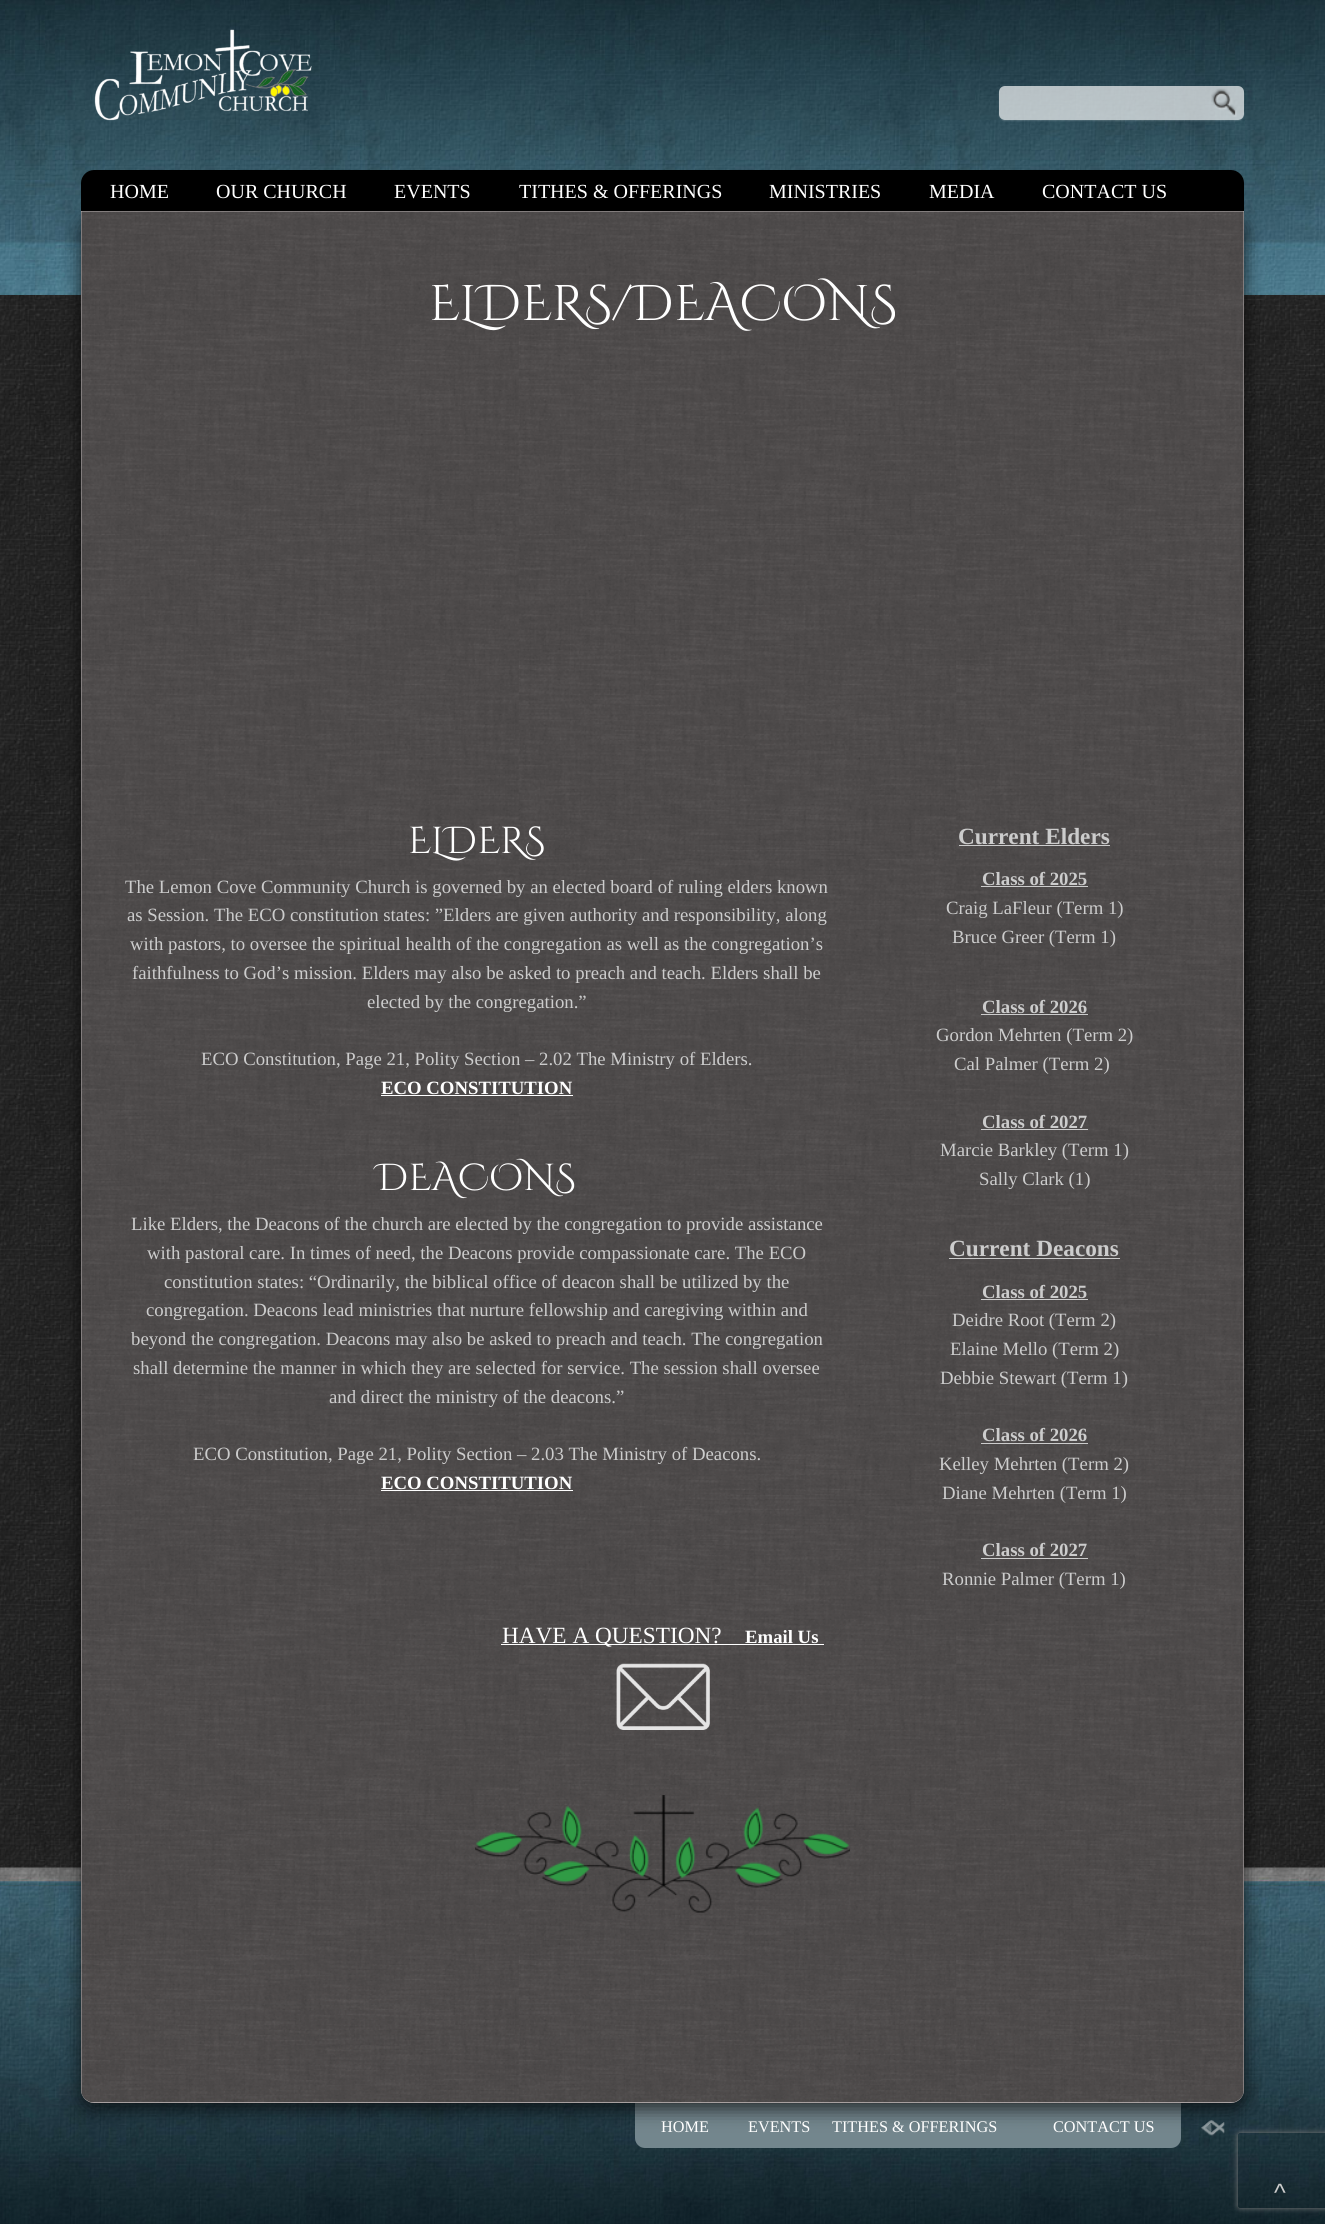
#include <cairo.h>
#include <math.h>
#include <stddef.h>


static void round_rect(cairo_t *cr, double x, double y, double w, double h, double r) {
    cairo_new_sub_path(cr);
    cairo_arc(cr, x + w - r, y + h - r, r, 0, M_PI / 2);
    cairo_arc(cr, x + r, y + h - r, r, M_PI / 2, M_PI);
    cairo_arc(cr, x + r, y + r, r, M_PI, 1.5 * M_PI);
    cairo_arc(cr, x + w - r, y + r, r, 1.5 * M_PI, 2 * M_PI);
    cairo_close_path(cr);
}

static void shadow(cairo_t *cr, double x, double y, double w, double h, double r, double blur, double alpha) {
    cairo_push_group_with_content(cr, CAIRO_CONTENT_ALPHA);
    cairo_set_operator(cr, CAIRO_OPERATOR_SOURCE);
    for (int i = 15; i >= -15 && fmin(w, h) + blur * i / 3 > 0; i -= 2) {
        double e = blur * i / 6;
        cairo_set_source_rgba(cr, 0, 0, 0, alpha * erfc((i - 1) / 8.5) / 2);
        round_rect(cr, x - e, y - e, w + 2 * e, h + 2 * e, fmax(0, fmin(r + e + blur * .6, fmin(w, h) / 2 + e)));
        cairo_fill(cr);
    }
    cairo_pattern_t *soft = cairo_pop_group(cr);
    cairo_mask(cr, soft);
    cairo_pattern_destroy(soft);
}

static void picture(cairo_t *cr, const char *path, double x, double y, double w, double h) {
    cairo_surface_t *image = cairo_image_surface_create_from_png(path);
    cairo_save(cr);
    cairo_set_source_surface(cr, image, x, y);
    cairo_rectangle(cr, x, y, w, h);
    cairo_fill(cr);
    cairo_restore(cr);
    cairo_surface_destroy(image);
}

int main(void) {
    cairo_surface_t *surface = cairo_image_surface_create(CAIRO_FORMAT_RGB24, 1325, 2224);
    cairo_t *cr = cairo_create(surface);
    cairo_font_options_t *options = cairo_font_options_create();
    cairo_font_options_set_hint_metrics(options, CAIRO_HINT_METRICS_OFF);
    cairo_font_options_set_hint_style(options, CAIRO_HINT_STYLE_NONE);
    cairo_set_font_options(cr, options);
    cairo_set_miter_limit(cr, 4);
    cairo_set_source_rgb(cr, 1, 1, 1);
    cairo_paint(cr);
    picture(cr, "img1.png", 0, 295, 1325, 1573);
    picture(cr, "img2.png", 0, 0, 1325, 295);
    picture(cr, "img3.png", 0, 1867, 1325, 357);
    picture(cr, "img4.png", 94, 29, 218, 92);
    cairo_save(cr);
    cairo_set_fill_rule(cr, CAIRO_FILL_RULE_EVEN_ODD);
    cairo_new_path(cr);
    cairo_move_to(cr, 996, 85);
    cairo_line_to(cr, 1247, 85);
    cairo_line_to(cr, 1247, 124);
    cairo_line_to(cr, 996, 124);
    cairo_close_path(cr);
    cairo_move_to(cr, 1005, 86);
    cairo_line_to(cr, 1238, 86);
    cairo_curve_to(cr, 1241.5, 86, 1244, 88.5, 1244, 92);
    cairo_line_to(cr, 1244, 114);
    cairo_curve_to(cr, 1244, 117.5, 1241.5, 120, 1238, 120);
    cairo_line_to(cr, 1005, 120);
    cairo_curve_to(cr, 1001.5, 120, 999, 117.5, 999, 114);
    cairo_line_to(cr, 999, 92);
    cairo_curve_to(cr, 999, 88.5, 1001.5, 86, 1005, 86);
    cairo_close_path(cr);
    cairo_clip(cr);
    shadow(cr, 999, 88, 245, 33, 6, 0.5, 0.15);
    cairo_restore(cr);
    cairo_set_source_rgba(cr, 1, 1, 1, 0.67);
    round_rect(cr, 999, 86, 245, 34, 6);
    cairo_fill(cr);
    picture(cr, "img5.png", 1211, 88, 26, 29);
    cairo_set_source_rgb(cr, 0.451, 0.525, 0.553);
    cairo_new_path(cr);
    cairo_move_to(cr, 635, 2103);
    cairo_line_to(cr, 1181, 2103);
    cairo_line_to(cr, 1181, 2138);
    cairo_curve_to(cr, 1181, 2143.5, 1176.5, 2148, 1171, 2148);
    cairo_line_to(cr, 645, 2148);
    cairo_curve_to(cr, 639.5, 2148, 635, 2143.5, 635, 2138);
    cairo_close_path(cr);
    cairo_fill(cr);
    picture(cr, "img9.png", 1201, 2120, 24, 16);
    cairo_set_source_rgb(cr, 0, 0, 0);
    shadow(cr, 81, 218, 1163, 1891, 13, 9.5, 0.7);
    cairo_set_source_rgb(cr, 0, 0, 0);
    cairo_new_path(cr);
    cairo_move_to(cr, 94, 170);
    cairo_line_to(cr, 1231, 170);
    cairo_curve_to(cr, 1238, 170, 1244, 176, 1244, 183);
    cairo_line_to(cr, 1244, 211);
    cairo_line_to(cr, 81, 211);
    cairo_line_to(cr, 81, 183);
    cairo_curve_to(cr, 81, 176, 87, 170, 94, 170);
    cairo_close_path(cr);
    cairo_fill(cr);
    cairo_select_font_face(cr, "Liberation Serif", CAIRO_FONT_SLANT_NORMAL, CAIRO_FONT_WEIGHT_NORMAL);
    cairo_set_font_size(cr, 20);
    cairo_set_source_rgb(cr, 1, 1, 1);
    cairo_move_to(cr, 110, 198);
    cairo_show_text(cr, "HOME");
    cairo_move_to(cr, 216, 198);
    cairo_show_text(cr, "OUR CHURCH");
    cairo_move_to(cr, 394, 198);
    cairo_show_text(cr, "EVENTS");
    cairo_move_to(cr, 519, 198);
    cairo_show_text(cr, "TITHES & OFFERINGS");
    cairo_move_to(cr, 769, 198);
    cairo_show_text(cr, "MINISTRIES");
    cairo_move_to(cr, 929, 198);
    cairo_show_text(cr, "MEDIA");
    cairo_move_to(cr, 1042, 198);
    cairo_show_text(cr, "CONTACT US");
    cairo_set_source_rgb(cr, 0.769, 0.737, 0.737);
    cairo_new_path(cr);
    cairo_move_to(cr, 81, 211);
    cairo_line_to(cr, 1244, 211);
    cairo_line_to(cr, 1244, 2090);
    cairo_curve_to(cr, 1244, 2097, 1238, 2103, 1231, 2103);
    cairo_line_to(cr, 94, 2103);
    cairo_curve_to(cr, 87, 2103, 81, 2097, 81, 2090);
    cairo_close_path(cr);
    cairo_fill(cr);
    picture(cr, "img6.png", 81, 211, 1163, 1892);
    cairo_select_font_face(cr, "Cinzel Decorative", CAIRO_FONT_SLANT_NORMAL, CAIRO_FONT_WEIGHT_NORMAL);
    cairo_set_font_size(cr, 50);
    cairo_set_source_rgb(cr, 1, 1, 1);
    cairo_move_to(cr, 429, 320);
    cairo_show_text(cr, "ELDERS/DEACONS");
    cairo_set_font_size(cr, 37.5);
    cairo_move_to(cr, 408, 853);
    cairo_show_text(cr, "ELDERS");
    cairo_select_font_face(cr, "Liberation Serif", CAIRO_FONT_SLANT_NORMAL, CAIRO_FONT_WEIGHT_NORMAL);
    cairo_set_font_size(cr, 18.75);
    cairo_set_source_rgb(cr, 0.8, 0.8, 0.8);
    cairo_move_to(cr, 125, 893);
    cairo_show_text(cr, "The Lemon Cove Community Church is governed by an elected board of ruling elders known");
    cairo_move_to(cr, 127, 921);
    cairo_show_text(cr, "as Session. The ECO constitution states: ”Elders are given authority and responsibility, along");
    cairo_move_to(cr, 130, 950);
    cairo_show_text(cr, "with pastors, to oversee the spiritual health of the congregation as well as the congregation’s");
    cairo_move_to(cr, 132, 979);
    cairo_show_text(cr, "faithfulness to God’s mission. Elders may also be asked to preach and teach. Elders shall be");
    cairo_move_to(cr, 367, 1008);
    cairo_show_text(cr, "elected by the congregation.”");
    cairo_move_to(cr, 201, 1065);
    cairo_show_text(cr, "ECO Constitution, Page 21, Polity Section – 2.02 The Ministry of Elders.");
    cairo_select_font_face(cr, "Liberation Serif", CAIRO_FONT_SLANT_NORMAL, CAIRO_FONT_WEIGHT_BOLD);
    cairo_set_source_rgb(cr, 1, 1, 1);
    cairo_move_to(cr, 381, 1094);
    cairo_show_text(cr, "ECO CONSTITUTION");
    cairo_rectangle(cr, 381, 1095, 192, 1);
    cairo_fill(cr);
    cairo_select_font_face(cr, "Cinzel Decorative", CAIRO_FONT_SLANT_NORMAL, CAIRO_FONT_WEIGHT_NORMAL);
    cairo_set_font_size(cr, 37.5);
    cairo_move_to(cr, 377, 1190);
    cairo_show_text(cr, "DEACONS");
    cairo_select_font_face(cr, "Liberation Serif", CAIRO_FONT_SLANT_NORMAL, CAIRO_FONT_WEIGHT_NORMAL);
    cairo_set_font_size(cr, 18.75);
    cairo_set_source_rgb(cr, 0.8, 0.8, 0.8);
    cairo_move_to(cr, 131, 1230);
    cairo_show_text(cr, "Like Elders, the Deacons of the church are elected by the congregation to provide assistance");
    cairo_move_to(cr, 147, 1259);
    cairo_show_text(cr, "with pastoral care. In times of need, the Deacons provide compassionate care. The ECO");
    cairo_move_to(cr, 164, 1288);
    cairo_show_text(cr, "constitution states: “Ordinarily, the biblical office of deacon shall be utilized by the");
    cairo_move_to(cr, 146, 1316);
    cairo_show_text(cr, "congregation. Deacons lead ministries that nurture fellowship and caregiving within and");
    cairo_move_to(cr, 131, 1345);
    cairo_show_text(cr, "beyond the congregation. Deacons may also be asked to preach and teach. The congregation");
    cairo_move_to(cr, 133, 1374);
    cairo_show_text(cr, "shall determine the manner in which they are selected for service. The session shall oversee");
    cairo_move_to(cr, 329, 1403);
    cairo_show_text(cr, "and direct the ministry of the deacons.”");
    cairo_move_to(cr, 193, 1460);
    cairo_show_text(cr, "ECO Constitution, Page 21, Polity Section – 2.03 The Ministry of Deacons.");
    cairo_select_font_face(cr, "Liberation Serif", CAIRO_FONT_SLANT_NORMAL, CAIRO_FONT_WEIGHT_BOLD);
    cairo_set_source_rgb(cr, 1, 1, 1);
    cairo_move_to(cr, 381, 1489);
    cairo_show_text(cr, "ECO CONSTITUTION");
    cairo_rectangle(cr, 381, 1490, 192, 1);
    cairo_fill(cr);
    cairo_set_font_size(cr, 23.25);
    cairo_set_source_rgb(cr, 0.8, 0.8, 0.8);
    cairo_move_to(cr, 958, 844);
    cairo_show_text(cr, "Current Elders");
    cairo_rectangle(cr, 959, 845, 151, 1);
    cairo_fill(cr);
    cairo_set_font_size(cr, 18.75);
    cairo_move_to(cr, 982, 885);
    cairo_show_text(cr, "Class of 2025");
    cairo_rectangle(cr, 981, 886, 107, 1);
    cairo_fill(cr);
    cairo_select_font_face(cr, "Liberation Serif", CAIRO_FONT_SLANT_NORMAL, CAIRO_FONT_WEIGHT_NORMAL);
    cairo_move_to(cr, 946, 914);
    cairo_show_text(cr, "Craig LaFleur (Term 1)");
    cairo_move_to(cr, 952, 943);
    cairo_show_text(cr, "Bruce Greer (Term 1)");
    cairo_select_font_face(cr, "Liberation Serif", CAIRO_FONT_SLANT_NORMAL, CAIRO_FONT_WEIGHT_BOLD);
    cairo_move_to(cr, 982, 1013);
    cairo_show_text(cr, "Class of 2026");
    cairo_rectangle(cr, 981, 1014, 107, 1);
    cairo_fill(cr);
    cairo_select_font_face(cr, "Liberation Serif", CAIRO_FONT_SLANT_NORMAL, CAIRO_FONT_WEIGHT_NORMAL);
    cairo_move_to(cr, 936, 1041);
    cairo_show_text(cr, "Gordon Mehrten (Term 2)");
    cairo_move_to(cr, 954, 1070);
    cairo_show_text(cr, "Cal Palmer (Term 2)");
    cairo_select_font_face(cr, "Liberation Serif", CAIRO_FONT_SLANT_NORMAL, CAIRO_FONT_WEIGHT_BOLD);
    cairo_move_to(cr, 982, 1128);
    cairo_show_text(cr, "Class of 2027");
    cairo_rectangle(cr, 981, 1129, 107, 1);
    cairo_fill(cr);
    cairo_select_font_face(cr, "Liberation Serif", CAIRO_FONT_SLANT_NORMAL, CAIRO_FONT_WEIGHT_NORMAL);
    cairo_move_to(cr, 940, 1156);
    cairo_show_text(cr, "Marcie Barkley (Term 1)");
    cairo_move_to(cr, 979, 1185);
    cairo_show_text(cr, "Sally Clark (1)");
    cairo_select_font_face(cr, "Liberation Serif", CAIRO_FONT_SLANT_NORMAL, CAIRO_FONT_WEIGHT_BOLD);
    cairo_set_font_size(cr, 23.25);
    cairo_move_to(cr, 949, 1256);
    cairo_show_text(cr, "Current Deacons");
    cairo_rectangle(cr, 949, 1258, 171, 1);
    cairo_fill(cr);
    cairo_set_font_size(cr, 18.75);
    cairo_move_to(cr, 982, 1298);
    cairo_show_text(cr, "Class of 2025");
    cairo_rectangle(cr, 981, 1299, 107, 1);
    cairo_fill(cr);
    cairo_select_font_face(cr, "Liberation Serif", CAIRO_FONT_SLANT_NORMAL, CAIRO_FONT_WEIGHT_NORMAL);
    cairo_move_to(cr, 952, 1326);
    cairo_show_text(cr, "Deidre Root (Term 2)");
    cairo_move_to(cr, 950, 1355);
    cairo_show_text(cr, "Elaine Mello (Term 2)");
    cairo_move_to(cr, 940, 1384);
    cairo_show_text(cr, "Debbie Stewart (Term 1)");
    cairo_select_font_face(cr, "Liberation Serif", CAIRO_FONT_SLANT_NORMAL, CAIRO_FONT_WEIGHT_BOLD);
    cairo_move_to(cr, 982, 1441);
    cairo_show_text(cr, "Class of 2026");
    cairo_rectangle(cr, 981, 1443, 107, 1);
    cairo_fill(cr);
    cairo_select_font_face(cr, "Liberation Serif", CAIRO_FONT_SLANT_NORMAL, CAIRO_FONT_WEIGHT_NORMAL);
    cairo_move_to(cr, 939, 1470);
    cairo_show_text(cr, "Kelley Mehrten (Term 2)");
    cairo_move_to(cr, 942, 1499);
    cairo_show_text(cr, "Diane Mehrten (Term 1)");
    cairo_select_font_face(cr, "Liberation Serif", CAIRO_FONT_SLANT_NORMAL, CAIRO_FONT_WEIGHT_BOLD);
    cairo_move_to(cr, 982, 1556);
    cairo_show_text(cr, "Class of 2027");
    cairo_rectangle(cr, 981, 1558, 107, 1);
    cairo_fill(cr);
    cairo_select_font_face(cr, "Liberation Serif", CAIRO_FONT_SLANT_NORMAL, CAIRO_FONT_WEIGHT_NORMAL);
    cairo_move_to(cr, 942, 1585);
    cairo_show_text(cr, "Ronnie Palmer (Term 1)");
    cairo_set_source_rgb(cr, 1, 1, 1);
    cairo_rectangle(cr, 501, 1644, 323, 1);
    cairo_fill(cr);
    cairo_set_font_size(cr, 23.25);
    cairo_move_to(cr, 502, 1643);
    cairo_show_text(cr, "HAVE A QUESTION?");
    cairo_select_font_face(cr, "Liberation Serif", CAIRO_FONT_SLANT_NORMAL, CAIRO_FONT_WEIGHT_BOLD);
    cairo_set_font_size(cr, 18.75);
    cairo_move_to(cr, 745, 1643);
    cairo_show_text(cr, "Email Us");
    picture(cr, "img7.png", 616, 1663, 94, 67);
    picture(cr, "img8.png", 475, 1795, 375, 118);
    cairo_select_font_face(cr, "Liberation Serif", CAIRO_FONT_SLANT_NORMAL, CAIRO_FONT_WEIGHT_NORMAL);
    cairo_set_font_size(cr, 16.25);
    cairo_move_to(cr, 661, 2132);
    cairo_show_text(cr, "HOME");
    cairo_move_to(cr, 748, 2132);
    cairo_show_text(cr, "EVENTS");
    cairo_move_to(cr, 832, 2132);
    cairo_show_text(cr, "TITHES & OFFERINGS");
    cairo_move_to(cr, 1053, 2132);
    cairo_show_text(cr, "CONTACT US");
    cairo_save(cr);
    cairo_set_fill_rule(cr, CAIRO_FILL_RULE_EVEN_ODD);
    cairo_new_path(cr);
    cairo_move_to(cr, 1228, 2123);
    cairo_line_to(cr, 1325, 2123);
    cairo_line_to(cr, 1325, 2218);
    cairo_line_to(cr, 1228, 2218);
    cairo_close_path(cr);
    cairo_move_to(cr, 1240.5, 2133);
    cairo_line_to(cr, 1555.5, 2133);
    cairo_curve_to(cr, 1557, 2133, 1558, 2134, 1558, 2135.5);
    cairo_line_to(cr, 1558, 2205.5);
    cairo_curve_to(cr, 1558, 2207, 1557, 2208, 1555.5, 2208);
    cairo_line_to(cr, 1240.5, 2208);
    cairo_curve_to(cr, 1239, 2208, 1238, 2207, 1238, 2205.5);
    cairo_line_to(cr, 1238, 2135.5);
    cairo_curve_to(cr, 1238, 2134, 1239, 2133, 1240.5, 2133);
    cairo_close_path(cr);
    cairo_clip(cr);
    cairo_set_source_rgb(cr, 0.502, 0.502, 0.502);
    shadow(cr, 1238, 2133, 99, 75, 2.5, 3, 1);
    cairo_restore(cr);
    cairo_select_font_face(cr, "Liberation Sans", CAIRO_FONT_SLANT_NORMAL, CAIRO_FONT_WEIGHT_NORMAL);
    cairo_set_font_size(cr, 25);
    cairo_set_source_rgb(cr, 0.8, 0.8, 0.8);
    cairo_move_to(cr, 1274, 2201);
    cairo_show_text(cr, "^");
    cairo_surface_write_to_png(surface, "page.png");
    cairo_font_options_destroy(options);
    cairo_destroy(cr);
    cairo_surface_destroy(surface);
    return 0;
}
